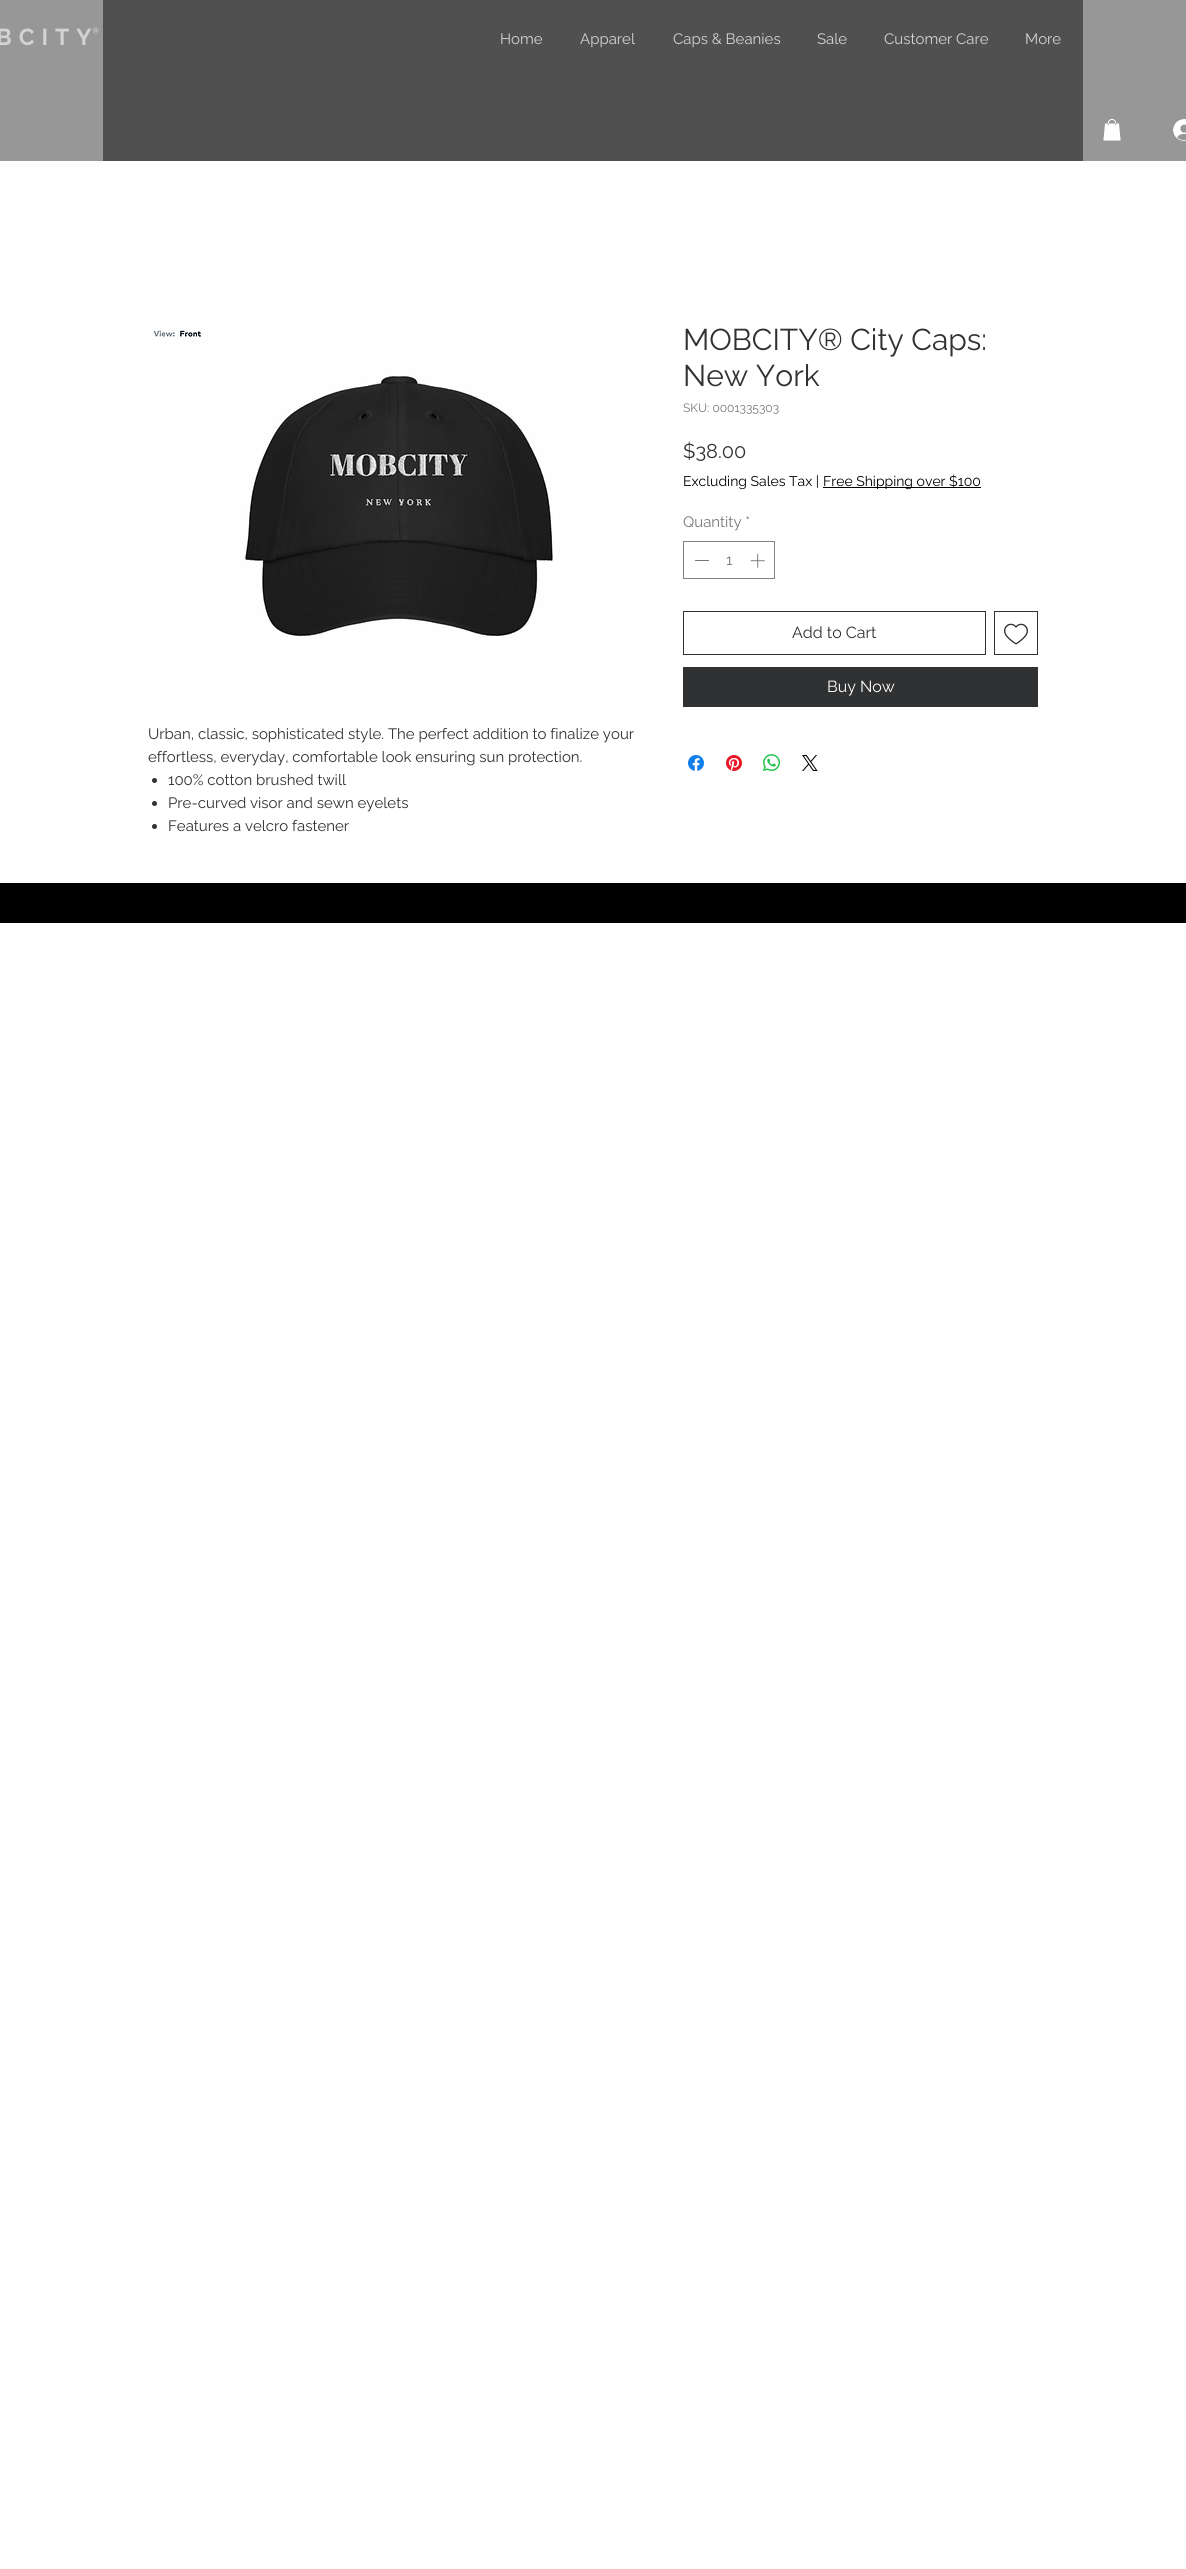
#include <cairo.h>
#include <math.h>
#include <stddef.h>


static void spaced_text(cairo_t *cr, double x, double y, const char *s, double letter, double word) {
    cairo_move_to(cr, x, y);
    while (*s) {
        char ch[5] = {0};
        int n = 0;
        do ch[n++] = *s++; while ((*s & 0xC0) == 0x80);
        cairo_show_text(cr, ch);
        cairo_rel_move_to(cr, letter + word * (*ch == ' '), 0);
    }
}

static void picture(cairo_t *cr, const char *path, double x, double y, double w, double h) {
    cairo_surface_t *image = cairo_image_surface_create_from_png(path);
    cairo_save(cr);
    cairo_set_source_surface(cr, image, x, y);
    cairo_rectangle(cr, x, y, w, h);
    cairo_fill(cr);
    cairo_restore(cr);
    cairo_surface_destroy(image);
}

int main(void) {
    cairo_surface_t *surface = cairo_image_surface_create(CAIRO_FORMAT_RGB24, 1186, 2569);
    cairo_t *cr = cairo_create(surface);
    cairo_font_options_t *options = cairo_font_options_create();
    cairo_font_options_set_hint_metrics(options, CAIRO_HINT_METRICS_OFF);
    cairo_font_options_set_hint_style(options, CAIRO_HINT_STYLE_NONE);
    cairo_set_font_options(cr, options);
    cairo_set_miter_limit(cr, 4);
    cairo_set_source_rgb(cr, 1, 1, 1);
    cairo_paint(cr);
    cairo_set_source_rgb(cr, 0.592, 0.592, 0.592);
    cairo_rectangle(cr, 0, 0, 1186, 161);
    cairo_fill(cr);
    cairo_set_source_rgb(cr, 0.314, 0.314, 0.314);
    cairo_rectangle(cr, 103, 0, 980, 161);
    cairo_fill(cr);
    cairo_select_font_face(cr, "Raleway", CAIRO_FONT_SLANT_NORMAL, CAIRO_FONT_WEIGHT_BOLD);
    cairo_set_font_size(cr, 23);
    cairo_set_source_rgb(cr, 0.827, 0.827, 0.827);
    spaced_text(cr, -4, 45, "BCITY", 7, 0);
    cairo_select_font_face(cr, "Playfair Display", CAIRO_FONT_SLANT_NORMAL, CAIRO_FONT_WEIGHT_BOLD);
    cairo_set_font_size(cr, 11);
    cairo_set_source_rgb(cr, 0.8, 0.8, 0.8);
    spaced_text(cr, 92, 36, "®", 1, 0);
    cairo_select_font_face(cr, "Raleway", CAIRO_FONT_SLANT_NORMAL, CAIRO_FONT_WEIGHT_NORMAL);
    cairo_set_font_size(cr, 15);
    cairo_set_source_rgb(cr, 0.827, 0.827, 0.827);
    cairo_move_to(cr, 500, 44);
    cairo_show_text(cr, "Home");
    cairo_move_to(cr, 580, 44);
    cairo_show_text(cr, "Apparel");
    cairo_move_to(cr, 673, 44);
    cairo_show_text(cr, "Caps & Beanies");
    cairo_move_to(cr, 817, 44);
    cairo_show_text(cr, "Sale");
    cairo_move_to(cr, 884, 44);
    cairo_show_text(cr, "Customer Care");
    cairo_move_to(cr, 1025, 44);
    cairo_show_text(cr, "More");
    picture(cr, "img1.png", 1103, 119, 18, 22);
    picture(cr, "img2.png", 1173, 119, 13, 22);
    cairo_set_font_size(cr, 30);
    cairo_set_source_rgb(cr, 0.188, 0.192, 0.196);
    cairo_move_to(cr, 683, 350);
    cairo_show_text(cr, "MOBCITY® City Caps:");
    cairo_move_to(cr, 683, 386);
    cairo_show_text(cr, "New York");
    cairo_set_font_size(cr, 12);
    cairo_set_source_rgb(cr, 0.467, 0.467, 0.467);
    cairo_move_to(cr, 683, 412);
    cairo_show_text(cr, "SKU: 0001335303");
    cairo_set_font_size(cr, 20);
    cairo_set_source_rgb(cr, 0.188, 0.192, 0.196);
    cairo_move_to(cr, 683, 458);
    cairo_show_text(cr, "$38.00");
    cairo_set_font_size(cr, 14);
    cairo_set_source_rgb(cr, 0, 0, 0);
    cairo_move_to(cr, 683, 486);
    cairo_show_text(cr, "Excluding Sales Tax |");
    cairo_rectangle(cr, 823, 487, 158, 1);
    cairo_fill(cr);
    cairo_move_to(cr, 823, 486);
    cairo_show_text(cr, "Free Shipping over $100");
    cairo_set_font_size(cr, 15);
    cairo_set_source_rgb(cr, 0.467, 0.467, 0.467);
    cairo_move_to(cr, 683, 527);
    cairo_show_text(cr, "Quantity *");
    cairo_rectangle(cr, 683.5, 541.5, 91, 37);
    cairo_set_source_rgb(cr, 0.514, 0.514, 0.518);
    cairo_set_line_width(cr, 1);
    cairo_stroke(cr);
    cairo_set_source_rgb(cr, 0.467, 0.467, 0.467);
    cairo_rectangle(cr, 695, 560, 14, 1);
    cairo_fill(cr);
    cairo_move_to(cr, 726, 565);
    cairo_show_text(cr, "1");
    picture(cr, "img3.png", 750, 553, 15, 15);
    cairo_rectangle(cr, 683.5, 611.5, 302, 43);
    cairo_set_source_rgb(cr, 0.188, 0.192, 0.196);
    cairo_stroke(cr);
    cairo_set_font_size(cr, 16);
    cairo_move_to(cr, 792, 638);
    cairo_show_text(cr, "Add to Cart");
    cairo_rectangle(cr, 994.5, 611.5, 43, 43);
    cairo_stroke(cr);
    picture(cr, "img4.png", 1004, 623, 24, 22);
    cairo_rectangle(cr, 683, 667, 355, 40);
    cairo_fill(cr);
    cairo_set_source_rgb(cr, 1, 1, 1);
    cairo_move_to(cr, 827, 692);
    cairo_show_text(cr, "Buy Now");
    picture(cr, "img5.png", 688, 755, 16, 16);
    picture(cr, "img6.png", 726, 755, 16, 16);
    picture(cr, "img7.png", 763, 754, 17, 17);
    picture(cr, "img8.png", 802, 755, 16, 16);
    picture(cr, "img9.png", 153, 330, 400, 308);
    cairo_set_font_size(cr, 15);
    cairo_set_source_rgb(cr, 0.188, 0.192, 0.196);
    cairo_move_to(cr, 148, 739);
    cairo_show_text(cr, "Urban, classic, sophisticated style. The perfect addition to finalize your");
    cairo_move_to(cr, 148, 762);
    cairo_show_text(cr, "effortless, everyday, comfortable look ensuring sun protection.");
    cairo_new_path(cr);
    cairo_arc(cr, 154.5, 780.5, 2.5, 0, 2 * M_PI);
    cairo_fill(cr);
    cairo_move_to(cr, 168, 785);
    cairo_show_text(cr, "100% cotton brushed twill");
    cairo_new_path(cr);
    cairo_arc(cr, 154.5, 803.5, 2.5, 0, 2 * M_PI);
    cairo_fill(cr);
    cairo_move_to(cr, 168, 808);
    cairo_show_text(cr, "Pre-curved visor and sewn eyelets");
    cairo_new_path(cr);
    cairo_arc(cr, 154.5, 826.5, 2.5, 0, 2 * M_PI);
    cairo_fill(cr);
    cairo_move_to(cr, 168, 831);
    cairo_show_text(cr, "Features a velcro fastener");
    cairo_set_source_rgb(cr, 0, 0, 0);
    cairo_rectangle(cr, 0, 883, 1186, 40);
    cairo_fill(cr);
    cairo_surface_write_to_png(surface, "page.png");
    cairo_font_options_destroy(options);
    cairo_destroy(cr);
    cairo_surface_destroy(surface);
    return 0;
}
